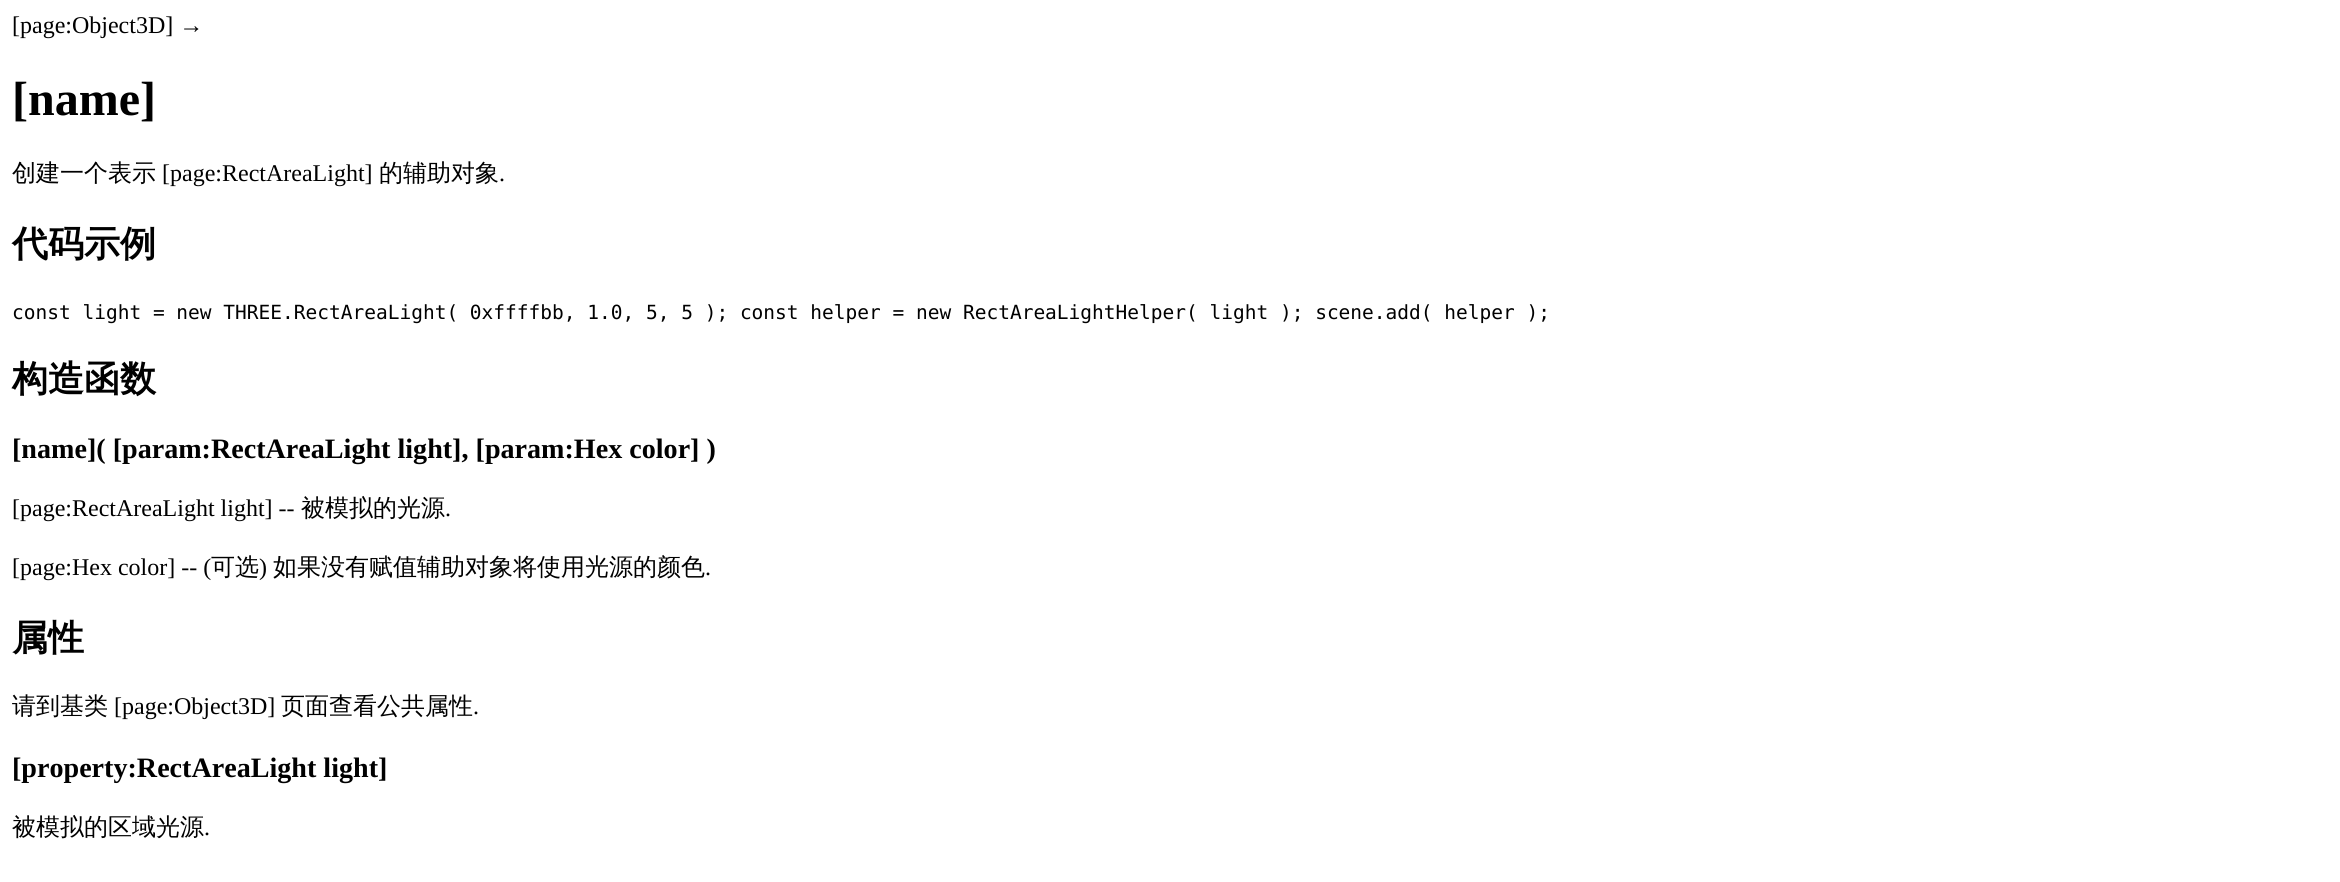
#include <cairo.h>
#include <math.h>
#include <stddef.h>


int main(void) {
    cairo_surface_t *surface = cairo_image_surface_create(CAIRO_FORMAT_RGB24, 2340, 882);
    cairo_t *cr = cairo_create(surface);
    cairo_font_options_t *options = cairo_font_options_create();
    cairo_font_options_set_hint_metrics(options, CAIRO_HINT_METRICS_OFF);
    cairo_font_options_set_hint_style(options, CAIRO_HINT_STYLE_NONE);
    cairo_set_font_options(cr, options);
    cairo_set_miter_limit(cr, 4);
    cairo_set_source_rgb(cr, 1, 1, 1);
    cairo_paint(cr);
    cairo_select_font_face(cr, "Liberation Serif", CAIRO_FONT_SLANT_NORMAL, CAIRO_FONT_WEIGHT_NORMAL);
    cairo_set_font_size(cr, 24);
    cairo_set_source_rgb(cr, 0, 0, 0);
    cairo_move_to(cr, 12, 33);
    cairo_show_text(cr, "[page:Object3D] →");
    cairo_select_font_face(cr, "Liberation Serif", CAIRO_FONT_SLANT_NORMAL, CAIRO_FONT_WEIGHT_BOLD);
    cairo_set_font_size(cr, 48);
    cairo_move_to(cr, 12, 115);
    cairo_show_text(cr, "[name]");
    cairo_select_font_face(cr, "WenQuanYi Zen Hei Medium", CAIRO_FONT_SLANT_NORMAL, CAIRO_FONT_WEIGHT_NORMAL);
    cairo_set_font_size(cr, 24);
    cairo_move_to(cr, 12, 181);
    cairo_show_text(cr, "创建一个表示");
    cairo_select_font_face(cr, "Liberation Serif", CAIRO_FONT_SLANT_NORMAL, CAIRO_FONT_WEIGHT_NORMAL);
    cairo_move_to(cr, 162, 181);
    cairo_show_text(cr, "[page:RectAreaLight]");
    cairo_select_font_face(cr, "WenQuanYi Zen Hei Medium", CAIRO_FONT_SLANT_NORMAL, CAIRO_FONT_WEIGHT_NORMAL);
    cairo_move_to(cr, 379, 181);
    cairo_show_text(cr, "的辅助对象");
    cairo_select_font_face(cr, "Liberation Serif", CAIRO_FONT_SLANT_NORMAL, CAIRO_FONT_WEIGHT_NORMAL);
    cairo_move_to(cr, 499, 181);
    cairo_show_text(cr, ".");
    cairo_select_font_face(cr, "WenQuanYi Zen Hei", CAIRO_FONT_SLANT_NORMAL, CAIRO_FONT_WEIGHT_BOLD);
    cairo_set_font_size(cr, 36);
    cairo_move_to(cr, 12, 256);
    cairo_show_text(cr, "代码示例");
    cairo_select_font_face(cr, "DejaVu Sans Mono", CAIRO_FONT_SLANT_NORMAL, CAIRO_FONT_WEIGHT_NORMAL);
    cairo_set_font_size(cr, 19.5);
    cairo_move_to(cr, 12, 319);
    cairo_show_text(cr, "const light = new THREE.RectAreaLight( 0xffffbb, 1.0, 5, 5 ); const helper = new RectAreaLightHelper( light ); scene.add( helper );");
    cairo_select_font_face(cr, "WenQuanYi Zen Hei", CAIRO_FONT_SLANT_NORMAL, CAIRO_FONT_WEIGHT_BOLD);
    cairo_set_font_size(cr, 36);
    cairo_move_to(cr, 12, 391);
    cairo_show_text(cr, "构造函数");
    cairo_select_font_face(cr, "Liberation Serif", CAIRO_FONT_SLANT_NORMAL, CAIRO_FONT_WEIGHT_BOLD);
    cairo_set_font_size(cr, 28.1);
    cairo_move_to(cr, 12, 458);
    cairo_show_text(cr, "[name]( [param:RectAreaLight light], [param:Hex color] )");
    cairo_select_font_face(cr, "Liberation Serif", CAIRO_FONT_SLANT_NORMAL, CAIRO_FONT_WEIGHT_NORMAL);
    cairo_set_font_size(cr, 24);
    cairo_move_to(cr, 12, 516);
    cairo_show_text(cr, "[page:RectAreaLight light] --");
    cairo_select_font_face(cr, "WenQuanYi Zen Hei Medium", CAIRO_FONT_SLANT_NORMAL, CAIRO_FONT_WEIGHT_NORMAL);
    cairo_move_to(cr, 301, 516);
    cairo_show_text(cr, "被模拟的光源");
    cairo_select_font_face(cr, "Liberation Serif", CAIRO_FONT_SLANT_NORMAL, CAIRO_FONT_WEIGHT_NORMAL);
    cairo_move_to(cr, 445, 516);
    cairo_show_text(cr, ".");
    cairo_move_to(cr, 12, 575);
    cairo_show_text(cr, "[page:Hex color] -- (");
    cairo_select_font_face(cr, "WenQuanYi Zen Hei Medium", CAIRO_FONT_SLANT_NORMAL, CAIRO_FONT_WEIGHT_NORMAL);
    cairo_move_to(cr, 211, 575);
    cairo_show_text(cr, "可选");
    cairo_select_font_face(cr, "Liberation Serif", CAIRO_FONT_SLANT_NORMAL, CAIRO_FONT_WEIGHT_NORMAL);
    cairo_move_to(cr, 259, 575);
    cairo_show_text(cr, ")");
    cairo_select_font_face(cr, "WenQuanYi Zen Hei Medium", CAIRO_FONT_SLANT_NORMAL, CAIRO_FONT_WEIGHT_NORMAL);
    cairo_move_to(cr, 273, 575);
    cairo_show_text(cr, "如果没有赋值辅助对象将使用光源的颜色");
    cairo_select_font_face(cr, "Liberation Serif", CAIRO_FONT_SLANT_NORMAL, CAIRO_FONT_WEIGHT_NORMAL);
    cairo_move_to(cr, 705, 575);
    cairo_show_text(cr, ".");
    cairo_select_font_face(cr, "WenQuanYi Zen Hei", CAIRO_FONT_SLANT_NORMAL, CAIRO_FONT_WEIGHT_BOLD);
    cairo_set_font_size(cr, 36);
    cairo_move_to(cr, 12, 650);
    cairo_show_text(cr, "属性");
    cairo_select_font_face(cr, "WenQuanYi Zen Hei Medium", CAIRO_FONT_SLANT_NORMAL, CAIRO_FONT_WEIGHT_NORMAL);
    cairo_set_font_size(cr, 24);
    cairo_move_to(cr, 12, 714);
    cairo_show_text(cr, "请到基类");
    cairo_select_font_face(cr, "Liberation Serif", CAIRO_FONT_SLANT_NORMAL, CAIRO_FONT_WEIGHT_NORMAL);
    cairo_move_to(cr, 114, 714);
    cairo_show_text(cr, "[page:Object3D]");
    cairo_select_font_face(cr, "WenQuanYi Zen Hei Medium", CAIRO_FONT_SLANT_NORMAL, CAIRO_FONT_WEIGHT_NORMAL);
    cairo_move_to(cr, 281, 714);
    cairo_show_text(cr, "页面查看公共属性");
    cairo_select_font_face(cr, "Liberation Serif", CAIRO_FONT_SLANT_NORMAL, CAIRO_FONT_WEIGHT_NORMAL);
    cairo_move_to(cr, 473, 714);
    cairo_show_text(cr, ".");
    cairo_select_font_face(cr, "Liberation Serif", CAIRO_FONT_SLANT_NORMAL, CAIRO_FONT_WEIGHT_BOLD);
    cairo_set_font_size(cr, 28.1);
    cairo_move_to(cr, 12, 777);
    cairo_show_text(cr, "[property:RectAreaLight light]");
    cairo_select_font_face(cr, "WenQuanYi Zen Hei Medium", CAIRO_FONT_SLANT_NORMAL, CAIRO_FONT_WEIGHT_NORMAL);
    cairo_set_font_size(cr, 24);
    cairo_move_to(cr, 12, 835);
    cairo_show_text(cr, "被模拟的区域光源");
    cairo_select_font_face(cr, "Liberation Serif", CAIRO_FONT_SLANT_NORMAL, CAIRO_FONT_WEIGHT_NORMAL);
    cairo_move_to(cr, 204, 835);
    cairo_show_text(cr, ".");
    cairo_surface_write_to_png(surface, "page.png");
    cairo_font_options_destroy(options);
    cairo_destroy(cr);
    cairo_surface_destroy(surface);
    return 0;
}
